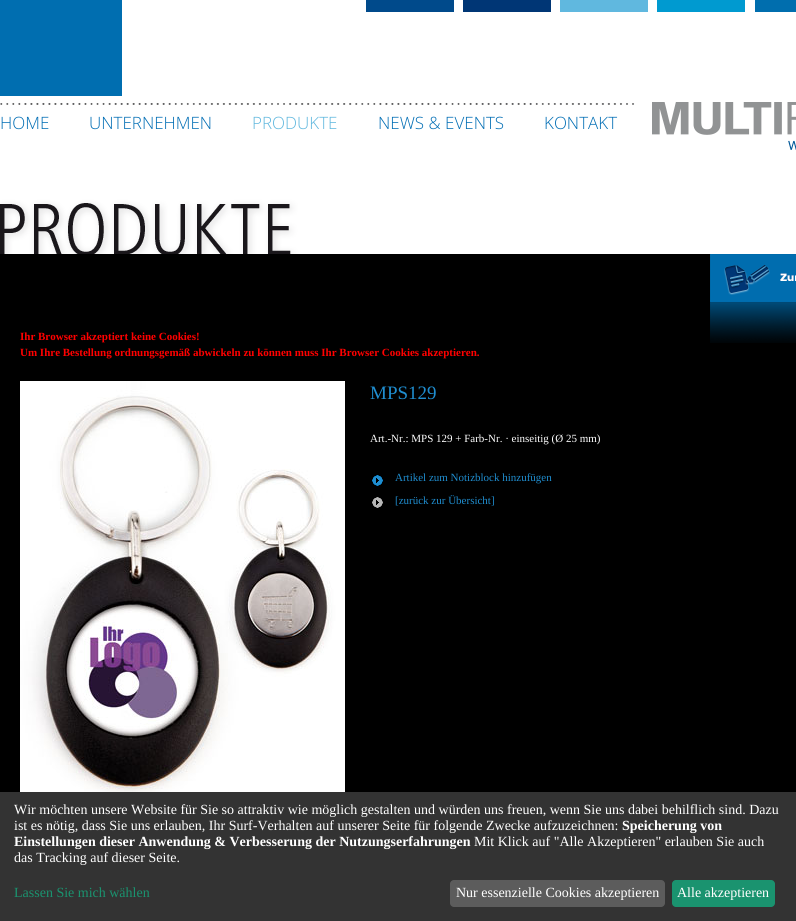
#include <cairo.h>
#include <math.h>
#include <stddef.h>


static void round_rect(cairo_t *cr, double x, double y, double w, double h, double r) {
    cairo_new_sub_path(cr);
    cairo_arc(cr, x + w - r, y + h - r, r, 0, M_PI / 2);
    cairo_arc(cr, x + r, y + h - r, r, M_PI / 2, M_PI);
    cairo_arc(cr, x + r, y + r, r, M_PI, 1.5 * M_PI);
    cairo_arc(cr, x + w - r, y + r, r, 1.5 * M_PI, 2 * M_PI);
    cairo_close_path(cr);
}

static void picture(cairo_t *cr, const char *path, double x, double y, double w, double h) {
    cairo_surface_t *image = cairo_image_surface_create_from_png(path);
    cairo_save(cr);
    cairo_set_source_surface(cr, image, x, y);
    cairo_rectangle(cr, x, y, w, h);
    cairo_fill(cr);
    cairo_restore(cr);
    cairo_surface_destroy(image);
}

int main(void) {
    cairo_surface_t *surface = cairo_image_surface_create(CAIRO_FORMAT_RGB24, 796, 921);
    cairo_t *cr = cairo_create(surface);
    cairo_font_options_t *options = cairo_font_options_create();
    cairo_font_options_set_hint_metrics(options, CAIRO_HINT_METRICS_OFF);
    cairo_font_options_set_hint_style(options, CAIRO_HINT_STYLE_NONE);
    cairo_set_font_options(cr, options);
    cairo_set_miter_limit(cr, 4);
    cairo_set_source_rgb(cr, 0, 0, 0);
    cairo_paint(cr);
    picture(cr, "img1.png", 0, 0, 796, 254);
    cairo_select_font_face(cr, "Open Sans Light", CAIRO_FONT_SLANT_NORMAL, CAIRO_FONT_WEIGHT_NORMAL);
    cairo_set_font_size(cr, 17);
    cairo_set_source_rgb(cr, 0, 0.427, 0.706);
    cairo_move_to(cr, 0, 129);
    cairo_show_text(cr, "HOME");
    cairo_move_to(cr, 89, 129);
    cairo_show_text(cr, "UNTERNEHMEN");
    cairo_set_source_rgb(cr, 0.373, 0.718, 0.871);
    cairo_move_to(cr, 252, 129);
    cairo_show_text(cr, "PRODUKTE");
    cairo_set_source_rgb(cr, 0, 0.427, 0.706);
    cairo_move_to(cr, 378, 129);
    cairo_show_text(cr, "NEWS & EVENTS");
    cairo_move_to(cr, 544, 129);
    cairo_show_text(cr, "KONTAKT");
    picture(cr, "img2.png", 710, 254, 86, 89);
    cairo_select_font_face(cr, "Liberation Serif", CAIRO_FONT_SLANT_NORMAL, CAIRO_FONT_WEIGHT_BOLD);
    cairo_set_font_size(cr, 11);
    cairo_set_source_rgb(cr, 1, 0, 0);
    cairo_move_to(cr, 20, 340);
    cairo_show_text(cr, "Ihr Browser akzeptiert keine Cookies!");
    cairo_move_to(cr, 20, 356);
    cairo_show_text(cr, "Um Ihre Bestellung ordnungsgemäß abwickeln zu können muss Ihr Browser Cookies akzeptieren.");
    picture(cr, "img3.png", 20, 381, 325, 411);
    cairo_select_font_face(cr, "Liberation Serif", CAIRO_FONT_SLANT_NORMAL, CAIRO_FONT_WEIGHT_NORMAL);
    cairo_set_font_size(cr, 19);
    cairo_set_source_rgb(cr, 0.122, 0.553, 0.812);
    cairo_move_to(cr, 370, 399);
    cairo_show_text(cr, "MPS129");
    cairo_set_font_size(cr, 11);
    cairo_set_source_rgb(cr, 1, 1, 1);
    cairo_move_to(cr, 370, 442);
    cairo_show_text(cr, "Art.-Nr.: MPS 129 + Farb-Nr. · einseitig (Ø 25 mm)");
    picture(cr, "img4.png", 372, 475, 11, 11);
    cairo_set_source_rgb(cr, 0.122, 0.553, 0.812);
    cairo_move_to(cr, 395, 481);
    cairo_show_text(cr, "Artikel zum Notizblock hinzufügen");
    picture(cr, "img5.png", 372, 497, 11, 11);
    cairo_move_to(cr, 395, 504);
    cairo_show_text(cr, "[zurück zur Übersicht]");
    cairo_set_source_rgb(cr, 0.2, 0.2, 0.2);
    cairo_rectangle(cr, 0, 792, 796, 129);
    cairo_fill(cr);
    cairo_set_font_size(cr, 14);
    cairo_set_source_rgb(cr, 1, 1, 1);
    cairo_move_to(cr, 14, 814);
    cairo_show_text(cr, "Wir möchten unsere Website für Sie so attraktiv wie möglich gestalten und würden uns freuen, wenn Sie uns dabei behilflich sind. Dazu");
    cairo_move_to(cr, 14, 830);
    cairo_show_text(cr, "ist es nötig, dass Sie uns erlauben, Ihr Surf-Verhalten auf unserer Seite für folgende Zwecke aufzuzeichnen:");
    cairo_select_font_face(cr, "Liberation Serif", CAIRO_FONT_SLANT_NORMAL, CAIRO_FONT_WEIGHT_BOLD);
    cairo_move_to(cr, 622, 830);
    cairo_show_text(cr, "Speicherung von");
    cairo_move_to(cr, 14, 846);
    cairo_show_text(cr, "Einstellungen dieser Anwendung & Verbesserung der Nutzungserfahrungen");
    cairo_select_font_face(cr, "Liberation Serif", CAIRO_FONT_SLANT_NORMAL, CAIRO_FONT_WEIGHT_NORMAL);
    cairo_move_to(cr, 474, 846);
    cairo_show_text(cr, "Mit Klick auf \"Alle Akzeptieren\" erlauben Sie auch");
    cairo_move_to(cr, 14, 862);
    cairo_show_text(cr, "das Tracking auf dieser Seite.");
    cairo_set_source_rgb(cr, 0.102, 0.576, 0.435);
    cairo_move_to(cr, 14, 897);
    cairo_show_text(cr, "Lassen Sie mich wählen");
    cairo_set_source_rgb(cr, 0.361, 0.361, 0.361);
    round_rect(cr, 450, 880, 215, 27, 4);
    cairo_fill(cr);
    cairo_set_source_rgb(cr, 1, 1, 1);
    cairo_move_to(cr, 456, 897);
    cairo_show_text(cr, "Nur essenzielle Cookies akzeptieren");
    cairo_set_source_rgb(cr, 0.102, 0.576, 0.435);
    round_rect(cr, 672, 880, 103, 27, 4);
    cairo_fill(cr);
    cairo_set_source_rgb(cr, 1, 1, 1);
    cairo_move_to(cr, 677, 897);
    cairo_show_text(cr, "Alle akzeptieren");
    cairo_surface_write_to_png(surface, "page.png");
    cairo_font_options_destroy(options);
    cairo_destroy(cr);
    cairo_surface_destroy(surface);
    return 0;
}
